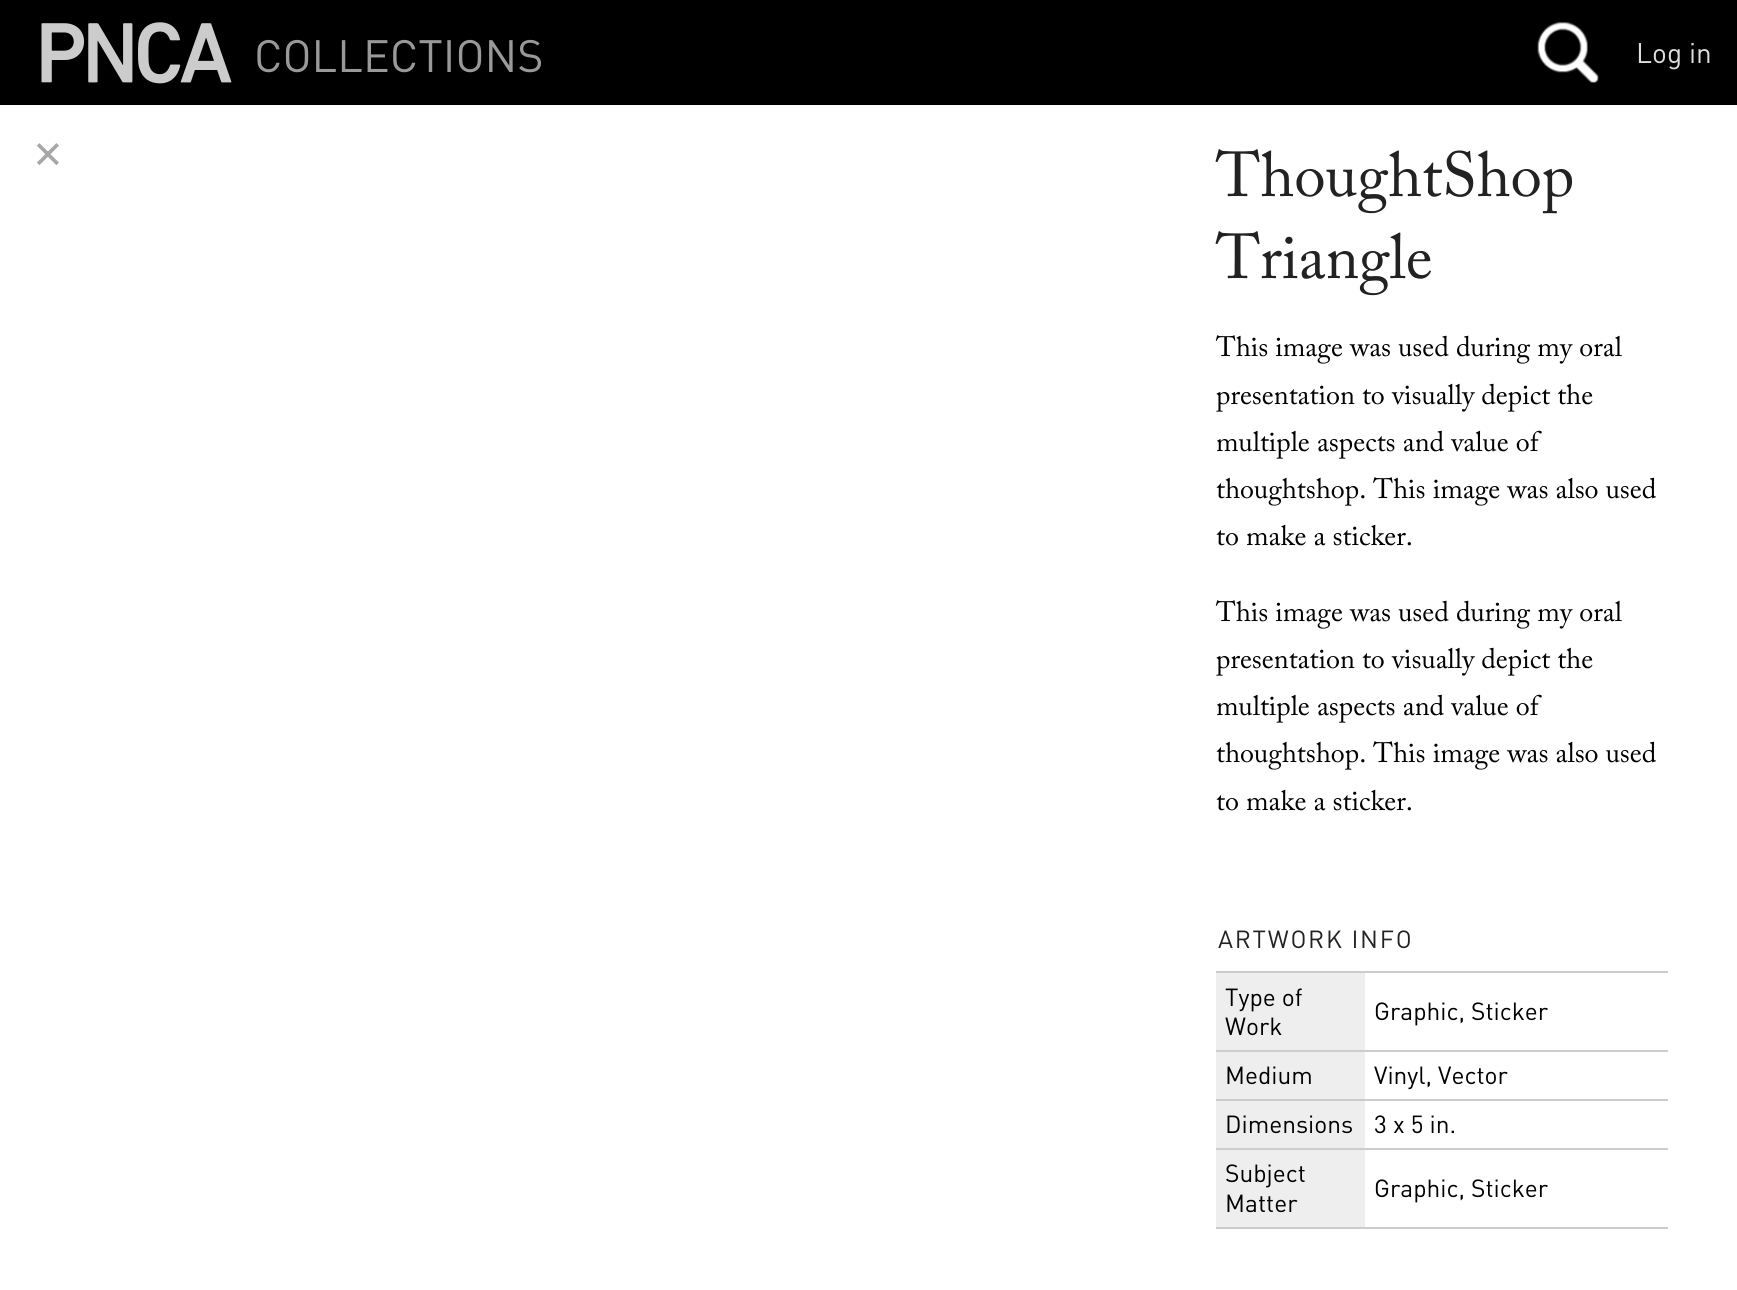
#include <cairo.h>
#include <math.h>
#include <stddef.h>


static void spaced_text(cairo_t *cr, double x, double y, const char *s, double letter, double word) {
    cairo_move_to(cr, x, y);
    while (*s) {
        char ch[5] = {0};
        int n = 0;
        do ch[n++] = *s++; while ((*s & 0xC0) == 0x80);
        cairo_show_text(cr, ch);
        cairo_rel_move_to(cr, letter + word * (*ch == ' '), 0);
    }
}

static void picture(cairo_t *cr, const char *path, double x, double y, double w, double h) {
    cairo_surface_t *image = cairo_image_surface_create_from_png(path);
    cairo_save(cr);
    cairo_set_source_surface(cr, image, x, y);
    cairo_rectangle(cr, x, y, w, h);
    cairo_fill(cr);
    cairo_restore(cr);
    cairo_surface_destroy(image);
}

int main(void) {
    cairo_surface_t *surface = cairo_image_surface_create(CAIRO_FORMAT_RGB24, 1737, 1290);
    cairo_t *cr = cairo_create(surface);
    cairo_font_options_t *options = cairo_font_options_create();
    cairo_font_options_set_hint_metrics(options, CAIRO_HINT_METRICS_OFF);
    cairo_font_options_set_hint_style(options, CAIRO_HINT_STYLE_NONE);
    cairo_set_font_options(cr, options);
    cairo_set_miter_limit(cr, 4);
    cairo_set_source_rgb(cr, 1, 1, 1);
    cairo_paint(cr);
    cairo_set_source_rgb(cr, 0, 0, 0);
    cairo_rectangle(cr, 0, 0, 1737, 105);
    cairo_fill(cr);
    picture(cr, "img1.png", 41, 22, 191, 62);
    cairo_select_font_face(cr, "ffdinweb", CAIRO_FONT_SLANT_NORMAL, CAIRO_FONT_WEIGHT_NORMAL);
    cairo_set_font_size(cr, 44.75);
    cairo_set_source_rgb(cr, 0.6, 0.6, 0.6);
    cairo_move_to(cr, 254, 72);
    cairo_show_text(cr, "COLLECTIONS");
    picture(cr, "img2.png", 1537, 22, 62, 61);
    cairo_set_font_size(cr, 28);
    cairo_set_source_rgb(cr, 0.867, 0.867, 0.867);
    cairo_move_to(cr, 1636, 63);
    cairo_show_text(cr, "Log in");
    cairo_select_font_face(cr, "DejaVu Sans", CAIRO_FONT_SLANT_NORMAL, CAIRO_FONT_WEIGHT_NORMAL);
    cairo_set_font_size(cr, 38);
    cairo_set_source_rgb(cr, 0.655, 0.655, 0.655);
    cairo_move_to(cr, 32, 168);
    cairo_show_text(cr, "✕");
    cairo_select_font_face(cr, "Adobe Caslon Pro", CAIRO_FONT_SLANT_NORMAL, CAIRO_FONT_WEIGHT_NORMAL);
    cairo_set_font_size(cr, 63);
    cairo_set_source_rgb(cr, 0.133, 0.133, 0.133);
    cairo_move_to(cr, 1216, 196);
    cairo_show_text(cr, "ThoughtShop");
    cairo_move_to(cr, 1216, 278);
    cairo_show_text(cr, "Triangle");
    cairo_set_font_size(cr, 28);
    cairo_set_source_rgb(cr, 0, 0, 0);
    cairo_move_to(cr, 1216, 356);
    cairo_show_text(cr, "This image was used during my oral");
    cairo_move_to(cr, 1216, 404);
    cairo_show_text(cr, "presentation to visually depict the");
    cairo_move_to(cr, 1216, 451);
    cairo_show_text(cr, "multiple aspects and value of");
    cairo_move_to(cr, 1216, 498);
    cairo_show_text(cr, "thoughtshop. This image was also used");
    cairo_move_to(cr, 1216, 545);
    cairo_show_text(cr, "to make a sticker.");
    cairo_move_to(cr, 1216, 621);
    cairo_show_text(cr, "This image was used during my oral");
    cairo_move_to(cr, 1216, 668);
    cairo_show_text(cr, "presentation to visually depict the");
    cairo_move_to(cr, 1216, 715);
    cairo_show_text(cr, "multiple aspects and value of");
    cairo_move_to(cr, 1216, 762);
    cairo_show_text(cr, "thoughtshop. This image was also used");
    cairo_move_to(cr, 1216, 810);
    cairo_show_text(cr, "to make a sticker.");
    cairo_set_source_rgb(cr, 0.8, 0.8, 0.8);
    cairo_rectangle(cr, 1216, 971, 452, 2);
    cairo_fill(cr);
    cairo_select_font_face(cr, "ffdinweb", CAIRO_FONT_SLANT_NORMAL, CAIRO_FONT_WEIGHT_NORMAL);
    cairo_set_font_size(cr, 24.5);
    cairo_set_source_rgb(cr, 0.133, 0.133, 0.133);
    spaced_text(cr, 1218, 948, "ARTWORK INFO", 1.75, 0);
    cairo_set_source_rgb(cr, 0.933, 0.933, 0.933);
    cairo_rectangle(cr, 1216, 973, 149, 77);
    cairo_fill(cr);
    cairo_set_source_rgb(cr, 0, 0, 0);
    cairo_move_to(cr, 1225, 1006);
    cairo_show_text(cr, "Type of");
    cairo_move_to(cr, 1225, 1035);
    cairo_show_text(cr, "Work");
    cairo_set_source_rgb(cr, 0.8, 0.8, 0.8);
    cairo_rectangle(cr, 1216, 1050, 452, 2);
    cairo_fill(cr);
    cairo_set_source_rgb(cr, 0, 0, 0);
    cairo_move_to(cr, 1374, 1020);
    cairo_show_text(cr, "Graphic, Sticker");
    cairo_set_source_rgb(cr, 0.933, 0.933, 0.933);
    cairo_rectangle(cr, 1216, 1052, 149, 47);
    cairo_fill(cr);
    cairo_set_source_rgb(cr, 0, 0, 0);
    cairo_move_to(cr, 1225, 1084);
    cairo_show_text(cr, "Medium");
    cairo_set_source_rgb(cr, 0.8, 0.8, 0.8);
    cairo_rectangle(cr, 1216, 1099, 452, 2);
    cairo_fill(cr);
    cairo_set_source_rgb(cr, 0, 0, 0);
    cairo_move_to(cr, 1374, 1084);
    cairo_show_text(cr, "Vinyl, Vector");
    cairo_set_source_rgb(cr, 0.933, 0.933, 0.933);
    cairo_rectangle(cr, 1216, 1101, 149, 47);
    cairo_fill(cr);
    cairo_set_source_rgb(cr, 0, 0, 0);
    cairo_move_to(cr, 1225, 1133);
    cairo_show_text(cr, "Dimensions");
    cairo_set_source_rgb(cr, 0.8, 0.8, 0.8);
    cairo_rectangle(cr, 1216, 1148, 452, 2);
    cairo_fill(cr);
    cairo_set_source_rgb(cr, 0, 0, 0);
    cairo_move_to(cr, 1374, 1133);
    cairo_show_text(cr, "3 x 5 in.");
    cairo_set_source_rgb(cr, 0.933, 0.933, 0.933);
    cairo_rectangle(cr, 1216, 1150, 149, 77);
    cairo_fill(cr);
    cairo_set_source_rgb(cr, 0, 0, 0);
    cairo_move_to(cr, 1225, 1182);
    cairo_show_text(cr, "Subject");
    cairo_move_to(cr, 1225, 1212);
    cairo_show_text(cr, "Matter");
    cairo_set_source_rgb(cr, 0.8, 0.8, 0.8);
    cairo_rectangle(cr, 1216, 1227, 452, 2);
    cairo_fill(cr);
    cairo_set_source_rgb(cr, 0, 0, 0);
    cairo_move_to(cr, 1374, 1197);
    cairo_show_text(cr, "Graphic, Sticker");
    cairo_surface_write_to_png(surface, "page.png");
    cairo_font_options_destroy(options);
    cairo_destroy(cr);
    cairo_surface_destroy(surface);
    return 0;
}
